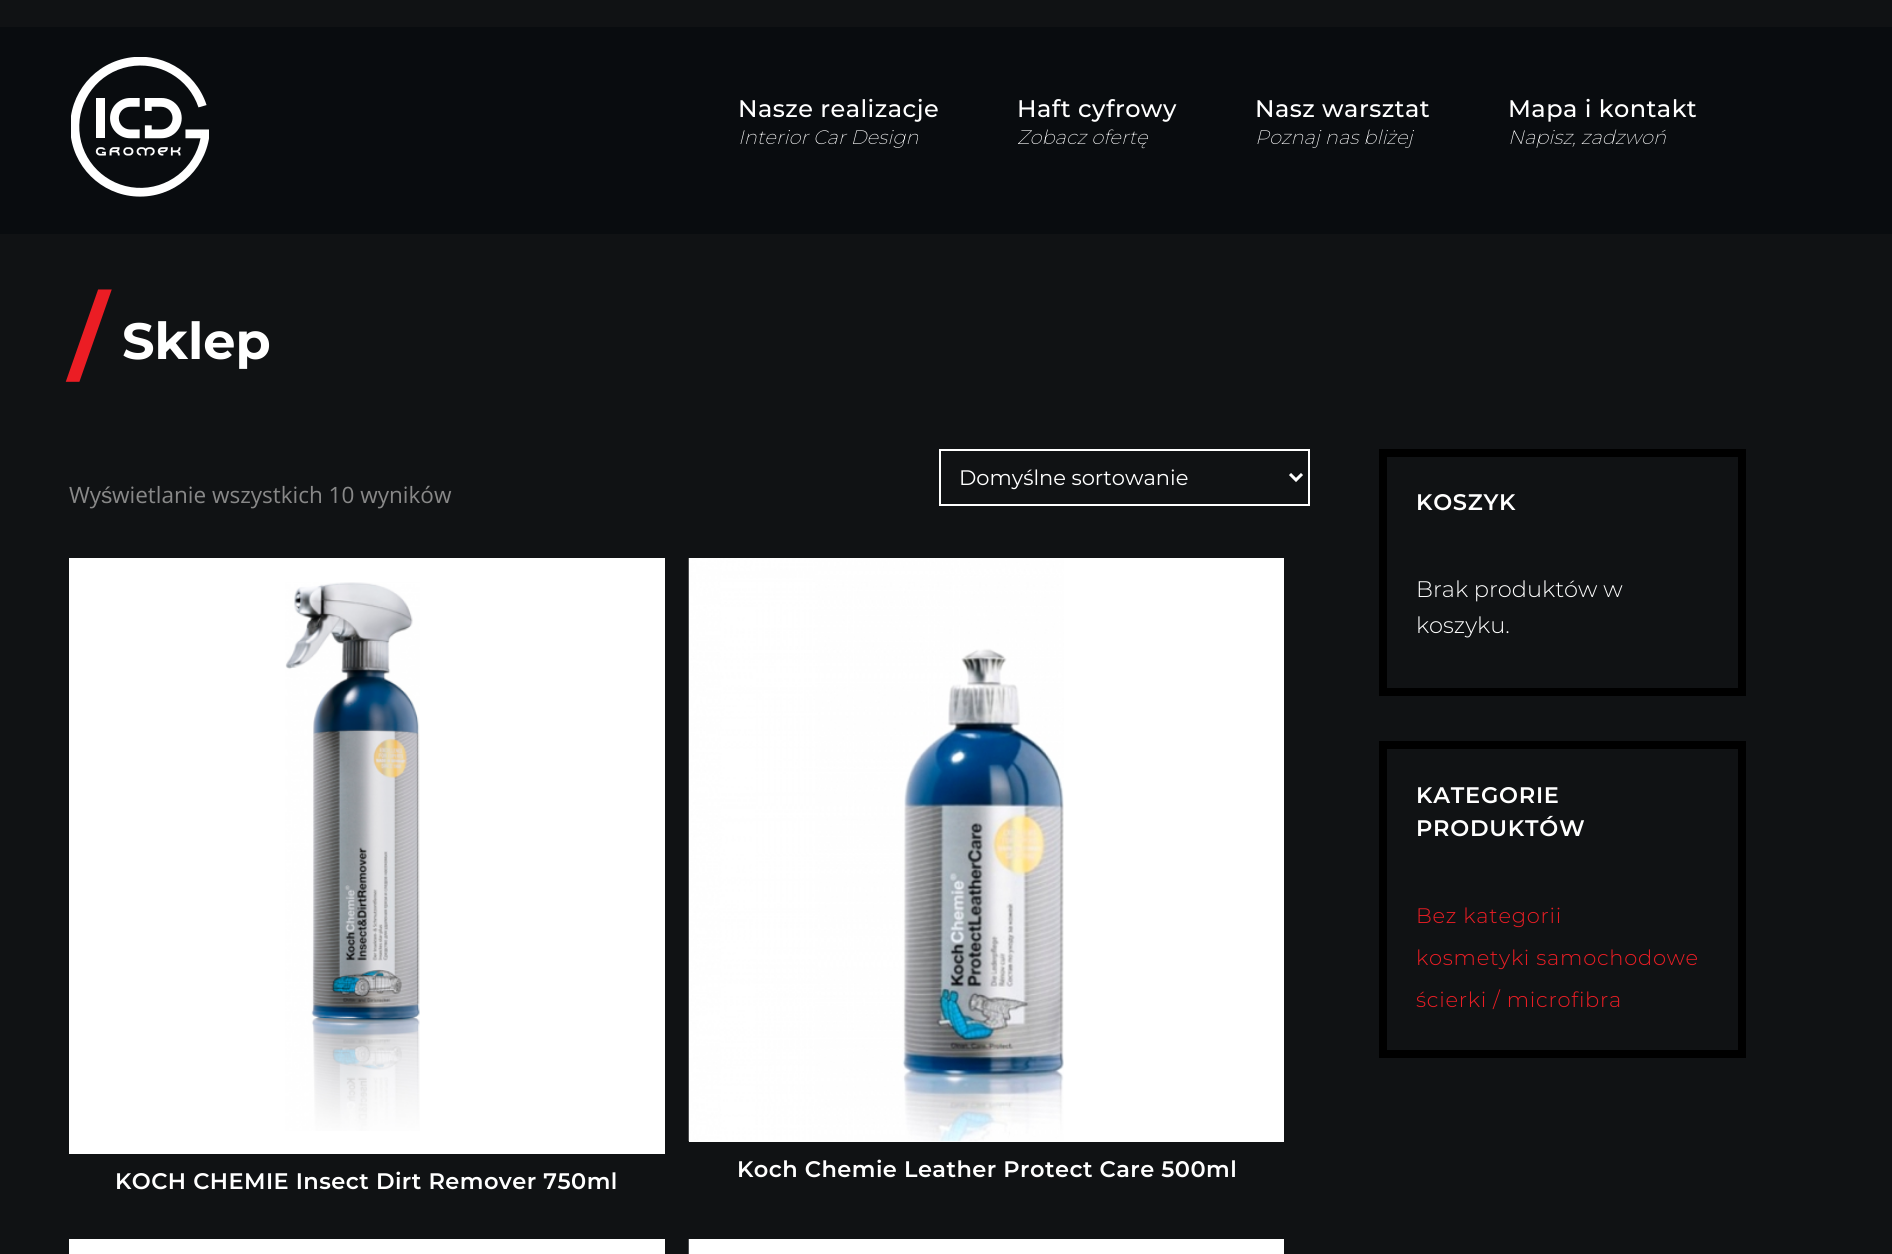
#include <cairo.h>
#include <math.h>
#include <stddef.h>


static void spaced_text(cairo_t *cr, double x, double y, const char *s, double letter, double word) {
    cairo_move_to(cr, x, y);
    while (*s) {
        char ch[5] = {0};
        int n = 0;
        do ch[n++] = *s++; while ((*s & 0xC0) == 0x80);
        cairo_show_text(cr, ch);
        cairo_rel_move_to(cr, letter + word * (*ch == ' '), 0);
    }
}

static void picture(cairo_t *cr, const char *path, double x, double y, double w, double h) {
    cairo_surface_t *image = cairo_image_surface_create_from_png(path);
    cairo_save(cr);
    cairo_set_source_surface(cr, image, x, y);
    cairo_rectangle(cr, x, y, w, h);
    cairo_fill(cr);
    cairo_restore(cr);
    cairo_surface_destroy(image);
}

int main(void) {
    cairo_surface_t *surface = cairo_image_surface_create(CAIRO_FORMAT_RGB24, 1892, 1254);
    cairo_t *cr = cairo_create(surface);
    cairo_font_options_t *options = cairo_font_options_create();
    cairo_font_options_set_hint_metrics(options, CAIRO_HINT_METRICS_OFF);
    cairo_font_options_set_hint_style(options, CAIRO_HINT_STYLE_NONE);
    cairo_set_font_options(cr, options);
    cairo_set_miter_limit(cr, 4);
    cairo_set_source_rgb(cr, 0.063, 0.071, 0.082);
    cairo_paint(cr);
    cairo_set_source_rgb(cr, 0.039, 0.047, 0.059);
    cairo_rectangle(cr, 0, 27, 1892, 207);
    cairo_fill(cr);
    picture(cr, "img1.png", 71, 57, 138, 140);
    cairo_select_font_face(cr, "Montserrat Medium", CAIRO_FONT_SLANT_NORMAL, CAIRO_FONT_WEIGHT_NORMAL);
    cairo_set_font_size(cr, 24);
    cairo_set_source_rgb(cr, 1, 1, 1);
    spaced_text(cr, 738, 117, "Nasze realizacje", 0.45, 0);
    cairo_select_font_face(cr, "Montserrat ExtraLight", CAIRO_FONT_SLANT_ITALIC, CAIRO_FONT_WEIGHT_NORMAL);
    cairo_set_font_size(cr, 19.5);
    cairo_move_to(cr, 738, 144);
    cairo_show_text(cr, "Interior Car Design");
    cairo_select_font_face(cr, "Montserrat Medium", CAIRO_FONT_SLANT_NORMAL, CAIRO_FONT_WEIGHT_NORMAL);
    cairo_set_font_size(cr, 24);
    spaced_text(cr, 1017, 117, "Haft cyfrowy", 0.45, 0);
    cairo_select_font_face(cr, "Montserrat ExtraLight", CAIRO_FONT_SLANT_ITALIC, CAIRO_FONT_WEIGHT_NORMAL);
    cairo_set_font_size(cr, 19.5);
    cairo_move_to(cr, 1017, 144);
    cairo_show_text(cr, "Zobacz ofertę");
    cairo_select_font_face(cr, "Montserrat Medium", CAIRO_FONT_SLANT_NORMAL, CAIRO_FONT_WEIGHT_NORMAL);
    cairo_set_font_size(cr, 24);
    spaced_text(cr, 1255, 117, "Nasz warsztat", 0.45, 0);
    cairo_select_font_face(cr, "Montserrat ExtraLight", CAIRO_FONT_SLANT_ITALIC, CAIRO_FONT_WEIGHT_NORMAL);
    cairo_set_font_size(cr, 19.5);
    cairo_move_to(cr, 1255, 144);
    cairo_show_text(cr, "Poznaj nas bliżej");
    cairo_select_font_face(cr, "Montserrat Medium", CAIRO_FONT_SLANT_NORMAL, CAIRO_FONT_WEIGHT_NORMAL);
    cairo_set_font_size(cr, 24);
    spaced_text(cr, 1508, 117, "Mapa i kontakt", 0.45, 0);
    cairo_select_font_face(cr, "Montserrat ExtraLight", CAIRO_FONT_SLANT_ITALIC, CAIRO_FONT_WEIGHT_NORMAL);
    cairo_set_font_size(cr, 19.5);
    cairo_move_to(cr, 1508, 144);
    cairo_show_text(cr, "Napisz, zadzwoń");
    cairo_select_font_face(cr, "Montserrat", CAIRO_FONT_SLANT_NORMAL, CAIRO_FONT_WEIGHT_BOLD);
    cairo_set_font_size(cr, 98);
    cairo_set_source_rgb(cr, 0.918, 0.114, 0.141);
    cairo_move_to(cr, 69, 372);
    cairo_show_text(cr, "/");
    cairo_set_font_size(cr, 51);
    cairo_set_source_rgb(cr, 1, 1, 1);
    cairo_move_to(cr, 122, 359);
    cairo_show_text(cr, "Sklep");
    cairo_rectangle(cr, 940, 450, 369, 55);
    cairo_stroke(cr);
    cairo_new_path(cr);
    cairo_move_to(cr, 1290, 474);
    cairo_line_to(cr, 1296, 480);
    cairo_line_to(cr, 1302, 474);
    cairo_set_line_width(cr, 3);
    cairo_stroke(cr);
    cairo_select_font_face(cr, "Montserrat", CAIRO_FONT_SLANT_NORMAL, CAIRO_FONT_WEIGHT_NORMAL);
    cairo_set_font_size(cr, 21);
    cairo_move_to(cr, 959, 485);
    cairo_show_text(cr, "Domyślne sortowanie");
    cairo_select_font_face(cr, "Open Sans", CAIRO_FONT_SLANT_NORMAL, CAIRO_FONT_WEIGHT_NORMAL);
    cairo_set_font_size(cr, 22.5);
    cairo_set_source_rgb(cr, 0.533, 0.533, 0.533);
    cairo_move_to(cr, 69, 503);
    cairo_show_text(cr, "Wy");
    cairo_select_font_face(cr, "Liberation Sans", CAIRO_FONT_SLANT_NORMAL, CAIRO_FONT_WEIGHT_NORMAL);
    cairo_move_to(cr, 101, 503);
    cairo_show_text(cr, "ś");
    cairo_select_font_face(cr, "Open Sans", CAIRO_FONT_SLANT_NORMAL, CAIRO_FONT_WEIGHT_NORMAL);
    cairo_move_to(cr, 112, 503);
    cairo_show_text(cr, "wietlanie wszystkich 10 wyników");
    cairo_set_source_rgb(cr, 1, 1, 1);
    cairo_rectangle(cr, 689, 558, 595, 584);
    cairo_fill(cr);
    picture(cr, "img2.png", 688, 558, 376, 584);
    cairo_select_font_face(cr, "Montserrat SemiBold", CAIRO_FONT_SLANT_NORMAL, CAIRO_FONT_WEIGHT_NORMAL);
    spaced_text(cr, 737, 1177, "Koch Chemie Leather Protect Care 500ml", 0.45, 0);
    cairo_rectangle(cr, 69, 558, 596, 596);
    cairo_fill(cr);
    picture(cr, "img3.png", 285, 582, 135, 549);
    spaced_text(cr, 115, 1189, "KOCH CHEMIE Insect Dirt Remover 750ml", 0.45, 0);
    cairo_rectangle(cr, 69, 1239, 596, 15);
    cairo_fill(cr);
    cairo_rectangle(cr, 689, 1239, 595, 15);
    cairo_fill(cr);
    cairo_set_source_rgb(cr, 0.298, 0.302, 0.314);
    cairo_rectangle(cr, 688, 1239, 1, 15);
    cairo_fill(cr);
    cairo_rectangle(cr, 1383, 453, 359, 239);
    cairo_set_source_rgb(cr, 0, 0, 0);
    cairo_set_line_width(cr, 8);
    cairo_stroke(cr);
    cairo_set_source_rgb(cr, 1, 1, 1);
    spaced_text(cr, 1416, 510, "KOSZYK", 0.75, 0);
    cairo_select_font_face(cr, "Montserrat Light", CAIRO_FONT_SLANT_NORMAL, CAIRO_FONT_WEIGHT_NORMAL);
    cairo_move_to(cr, 1416, 597);
    cairo_show_text(cr, "Brak produktów w");
    cairo_move_to(cr, 1416, 633);
    cairo_show_text(cr, "koszyku.");
    cairo_rectangle(cr, 1383, 745, 359, 309);
    cairo_set_source_rgb(cr, 0, 0, 0);
    cairo_stroke(cr);
    cairo_select_font_face(cr, "Montserrat SemiBold", CAIRO_FONT_SLANT_NORMAL, CAIRO_FONT_WEIGHT_NORMAL);
    cairo_set_source_rgb(cr, 1, 1, 1);
    spaced_text(cr, 1416, 803, "KATEGORIE", 0.75, 0);
    spaced_text(cr, 1416, 836, "PRODUKTÓW", 0.75, 0);
    cairo_select_font_face(cr, "Montserrat Light", CAIRO_FONT_SLANT_NORMAL, CAIRO_FONT_WEIGHT_NORMAL);
    cairo_set_font_size(cr, 21);
    cairo_set_source_rgb(cr, 0.918, 0.114, 0.141);
    spaced_text(cr, 1416, 923, "Bez kategorii", 0.75, 0);
    spaced_text(cr, 1416, 965, "kosmetyki samochodowe", 0.75, 0);
    spaced_text(cr, 1416, 1007, "ścierki / microfibra", 0.75, 0);
    cairo_surface_write_to_png(surface, "page.png");
    cairo_font_options_destroy(options);
    cairo_destroy(cr);
    cairo_surface_destroy(surface);
    return 0;
}
